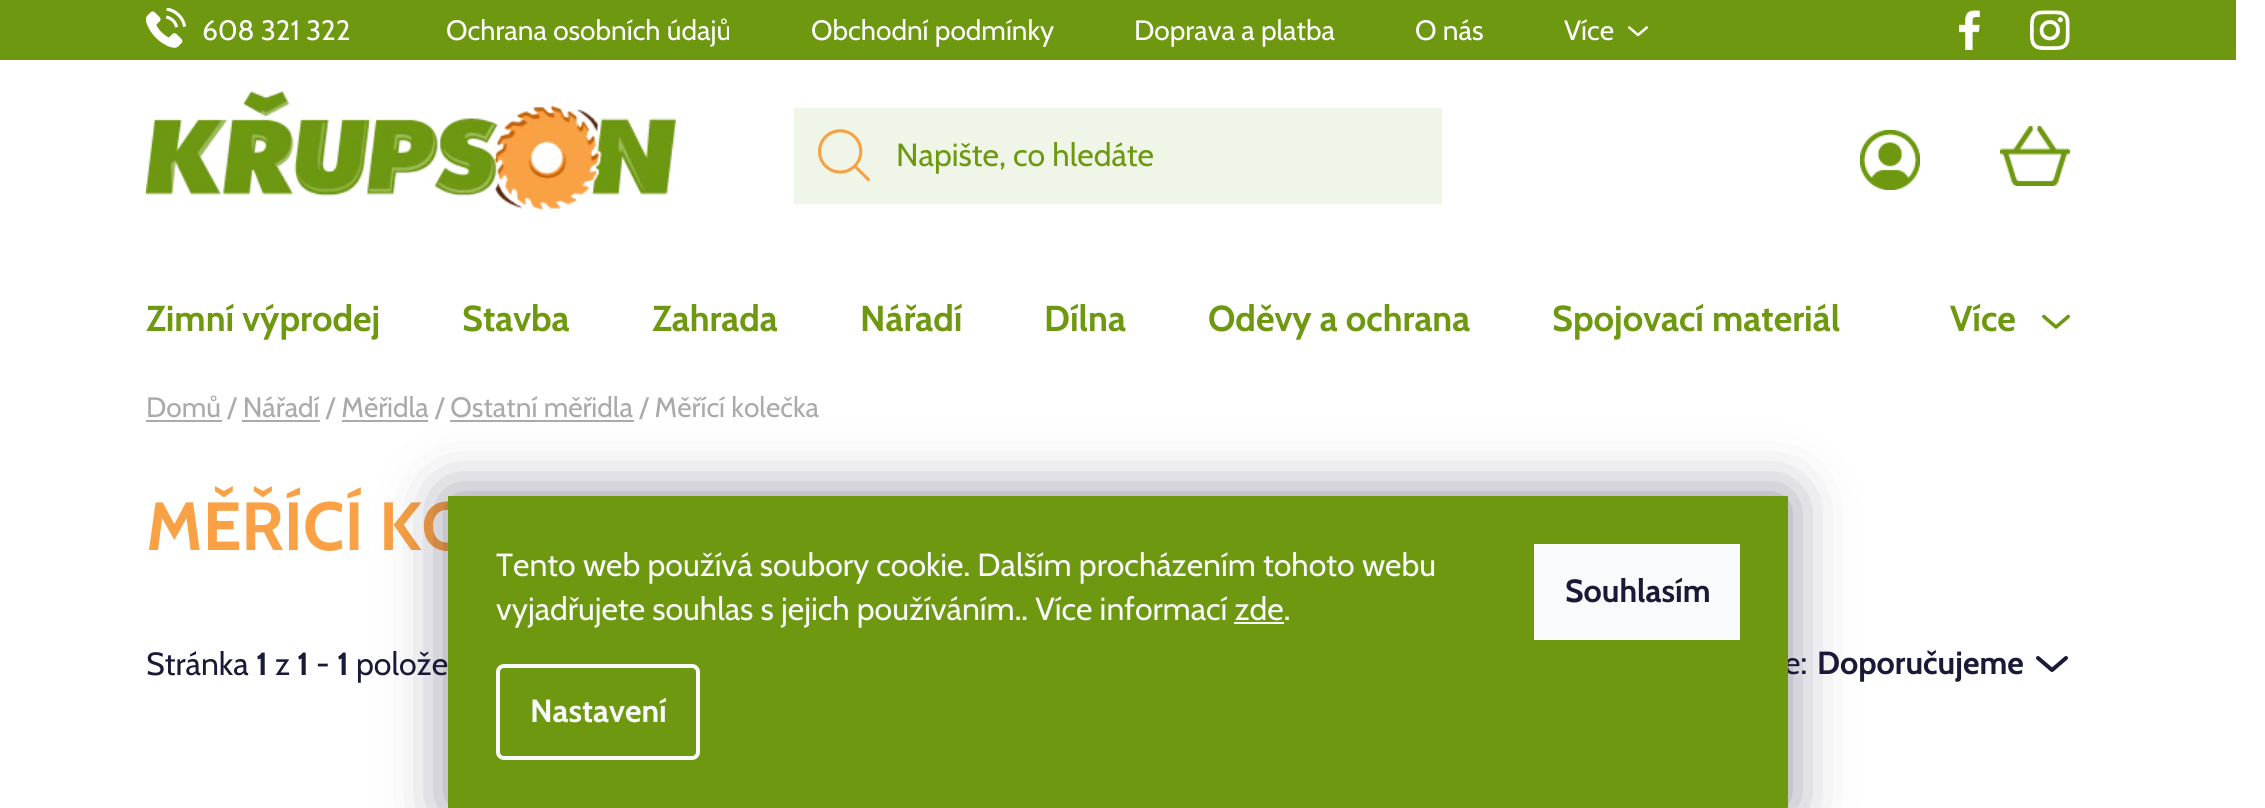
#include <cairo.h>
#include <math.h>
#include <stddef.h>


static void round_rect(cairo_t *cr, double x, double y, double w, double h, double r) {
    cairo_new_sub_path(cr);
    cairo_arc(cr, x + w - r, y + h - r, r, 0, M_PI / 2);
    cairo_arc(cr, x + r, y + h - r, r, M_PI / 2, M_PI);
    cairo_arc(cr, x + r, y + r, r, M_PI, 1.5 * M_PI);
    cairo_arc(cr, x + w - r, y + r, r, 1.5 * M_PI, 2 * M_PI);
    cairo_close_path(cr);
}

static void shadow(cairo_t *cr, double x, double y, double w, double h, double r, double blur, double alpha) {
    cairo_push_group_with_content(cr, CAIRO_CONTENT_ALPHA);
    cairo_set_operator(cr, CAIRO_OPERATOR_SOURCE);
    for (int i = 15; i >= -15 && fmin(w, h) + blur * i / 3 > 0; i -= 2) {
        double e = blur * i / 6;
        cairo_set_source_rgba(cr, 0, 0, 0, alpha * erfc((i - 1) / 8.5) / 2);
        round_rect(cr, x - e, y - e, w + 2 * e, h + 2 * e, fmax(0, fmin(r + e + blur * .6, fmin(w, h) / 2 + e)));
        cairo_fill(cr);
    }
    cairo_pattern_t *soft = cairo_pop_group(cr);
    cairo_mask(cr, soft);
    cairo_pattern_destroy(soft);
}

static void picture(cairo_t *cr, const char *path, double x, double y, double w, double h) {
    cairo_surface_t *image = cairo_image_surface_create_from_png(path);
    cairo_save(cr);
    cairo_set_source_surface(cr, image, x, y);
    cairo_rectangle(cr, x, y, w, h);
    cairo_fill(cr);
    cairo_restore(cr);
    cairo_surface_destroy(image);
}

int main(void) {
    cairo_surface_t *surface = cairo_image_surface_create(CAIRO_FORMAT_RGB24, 2265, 808);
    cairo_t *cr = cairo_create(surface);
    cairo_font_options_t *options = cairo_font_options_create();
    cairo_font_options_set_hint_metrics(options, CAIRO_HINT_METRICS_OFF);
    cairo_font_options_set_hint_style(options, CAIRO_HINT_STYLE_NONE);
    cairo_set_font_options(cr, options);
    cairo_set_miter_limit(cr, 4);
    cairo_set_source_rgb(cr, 1, 1, 1);
    cairo_paint(cr);
    cairo_set_source_rgb(cr, 0.427, 0.596, 0.063);
    cairo_rectangle(cr, 0, 0, 2236, 60);
    cairo_fill(cr);
    picture(cr, "img1.png", 146, 8, 40, 40);
    cairo_select_font_face(cr, "Cabin", CAIRO_FONT_SLANT_NORMAL, CAIRO_FONT_WEIGHT_NORMAL);
    cairo_set_font_size(cr, 28);
    cairo_set_source_rgb(cr, 1, 1, 1);
    cairo_move_to(cr, 202, 40);
    cairo_show_text(cr, "608 321 322");
    cairo_move_to(cr, 446, 40);
    cairo_show_text(cr, "Ochrana osobních údajů");
    cairo_move_to(cr, 811, 40);
    cairo_show_text(cr, "Obchodní podmínky");
    cairo_move_to(cr, 1134, 40);
    cairo_show_text(cr, "Doprava a platba");
    cairo_move_to(cr, 1415, 40);
    cairo_show_text(cr, "O nás");
    cairo_move_to(cr, 1564, 40);
    cairo_show_text(cr, "Více");
    picture(cr, "img2.png", 1628, 26, 20, 11);
    picture(cr, "img3.png", 1959, 10, 21, 40);
    picture(cr, "img4.png", 2030, 10, 40, 40);
    picture(cr, "img5.png", 146, 91, 530, 119);
    cairo_set_source_rgb(cr, 0.941, 0.961, 0.906);
    cairo_rectangle(cr, 794, 108, 648, 96);
    cairo_fill(cr);
    picture(cr, "img6.png", 818, 129, 52, 53);
    cairo_set_font_size(cr, 32);
    cairo_set_source_rgb(cr, 0.427, 0.596, 0.063);
    cairo_move_to(cr, 896, 166);
    cairo_show_text(cr, "Napište, co hledáte");
    picture(cr, "img7.png", 1860, 130, 60, 60);
    picture(cr, "img8.png", 2000, 126, 70, 60);
    cairo_select_font_face(cr, "Cabin", CAIRO_FONT_SLANT_NORMAL, CAIRO_FONT_WEIGHT_BOLD);
    cairo_set_font_size(cr, 36);
    cairo_move_to(cr, 146, 331);
    cairo_show_text(cr, "Zimní výprodej");
    cairo_move_to(cr, 462, 331);
    cairo_show_text(cr, "Stavba");
    cairo_move_to(cr, 652, 331);
    cairo_show_text(cr, "Zahrada");
    cairo_move_to(cr, 860, 331);
    cairo_show_text(cr, "Nářadí");
    cairo_move_to(cr, 1044, 331);
    cairo_show_text(cr, "Dílna");
    cairo_move_to(cr, 1208, 331);
    cairo_show_text(cr, "Oděvy a ochrana");
    cairo_move_to(cr, 1552, 331);
    cairo_show_text(cr, "Spojovací materiál");
    cairo_move_to(cr, 1950, 331);
    cairo_show_text(cr, "Více");
    picture(cr, "img9.png", 2042, 314, 28, 15);
    cairo_select_font_face(cr, "Cabin", CAIRO_FONT_SLANT_NORMAL, CAIRO_FONT_WEIGHT_NORMAL);
    cairo_set_font_size(cr, 28);
    cairo_set_source_rgb(cr, 0.667, 0.667, 0.667);
    cairo_move_to(cr, 146, 417);
    cairo_show_text(cr, "Domů / Nářadí / Měřidla / Ostatní měřidla / Měřící kolečka");
    cairo_rectangle(cr, 146, 420, 76, 2);
    cairo_fill(cr);
    cairo_rectangle(cr, 242, 420, 78, 2);
    cairo_fill(cr);
    cairo_rectangle(cr, 342, 420, 86, 2);
    cairo_fill(cr);
    cairo_rectangle(cr, 450, 420, 184, 2);
    cairo_fill(cr);
    cairo_select_font_face(cr, "Cabin", CAIRO_FONT_SLANT_NORMAL, CAIRO_FONT_WEIGHT_BOLD);
    cairo_set_font_size(cr, 68);
    cairo_set_source_rgb(cr, 0.973, 0.631, 0.267);
    cairo_move_to(cr, 146, 550);
    cairo_show_text(cr, "MĚŘÍCÍ KO");
    cairo_select_font_face(cr, "Cabin", CAIRO_FONT_SLANT_NORMAL, CAIRO_FONT_WEIGHT_NORMAL);
    cairo_set_font_size(cr, 32);
    cairo_set_source_rgb(cr, 0.102, 0.098, 0.216);
    cairo_move_to(cr, 146, 675);
    cairo_show_text(cr, "Stránka");
    cairo_select_font_face(cr, "Cabin", CAIRO_FONT_SLANT_NORMAL, CAIRO_FONT_WEIGHT_BOLD);
    cairo_move_to(cr, 256, 675);
    cairo_show_text(cr, "1");
    cairo_select_font_face(cr, "Cabin", CAIRO_FONT_SLANT_NORMAL, CAIRO_FONT_WEIGHT_NORMAL);
    cairo_move_to(cr, 275, 675);
    cairo_show_text(cr, "z");
    cairo_select_font_face(cr, "Cabin", CAIRO_FONT_SLANT_NORMAL, CAIRO_FONT_WEIGHT_BOLD);
    cairo_move_to(cr, 297, 675);
    cairo_show_text(cr, "1");
    cairo_select_font_face(cr, "Cabin", CAIRO_FONT_SLANT_NORMAL, CAIRO_FONT_WEIGHT_NORMAL);
    cairo_move_to(cr, 316, 675);
    cairo_show_text(cr, "-");
    cairo_select_font_face(cr, "Cabin", CAIRO_FONT_SLANT_NORMAL, CAIRO_FONT_WEIGHT_BOLD);
    cairo_move_to(cr, 337, 675);
    cairo_show_text(cr, "1");
    cairo_select_font_face(cr, "Cabin", CAIRO_FONT_SLANT_NORMAL, CAIRO_FONT_WEIGHT_NORMAL);
    cairo_move_to(cr, 356, 675);
    cairo_show_text(cr, "polože");
    cairo_move_to(cr, 1784, 674);
    cairo_show_text(cr, "e:");
    cairo_select_font_face(cr, "Cabin", CAIRO_FONT_SLANT_NORMAL, CAIRO_FONT_WEIGHT_BOLD);
    cairo_move_to(cr, 1817, 674);
    cairo_show_text(cr, "Doporučujeme");
    picture(cr, "img10.png", 2036, 656, 32, 16);
    cairo_set_source_rgb(cr, 0.106, 0.098, 0.224);
    shadow(cr, 448, 496, 1340, 312, 0, 30, 0.5);
    cairo_set_source_rgb(cr, 0.427, 0.596, 0.063);
    cairo_rectangle(cr, 448, 496, 1340, 312);
    cairo_fill(cr);
    cairo_select_font_face(cr, "Cabin", CAIRO_FONT_SLANT_NORMAL, CAIRO_FONT_WEIGHT_NORMAL);
    cairo_set_source_rgb(cr, 0.973, 0.98, 0.984);
    cairo_move_to(cr, 496, 576);
    cairo_show_text(cr, "Tento web používá soubory cookie. Dalším procházením tohoto webu");
    cairo_move_to(cr, 496, 620);
    cairo_show_text(cr, "vyjadřujete souhlas s jejich používáním.. Více informací zde.");
    cairo_rectangle(cr, 1234, 622, 50, 2);
    cairo_fill(cr);
    round_rect(cr, 498, 666, 200, 92, 6);
    cairo_set_line_width(cr, 4);
    cairo_stroke(cr);
    cairo_select_font_face(cr, "Cabin", CAIRO_FONT_SLANT_NORMAL, CAIRO_FONT_WEIGHT_BOLD);
    cairo_move_to(cr, 530, 722);
    cairo_show_text(cr, "Nastavení");
    cairo_rectangle(cr, 1534, 544, 206, 96);
    cairo_fill(cr);
    cairo_set_source_rgb(cr, 0.102, 0.098, 0.216);
    cairo_move_to(cr, 1565, 602);
    cairo_show_text(cr, "Souhlasím");
    cairo_surface_write_to_png(surface, "page.png");
    cairo_font_options_destroy(options);
    cairo_destroy(cr);
    cairo_surface_destroy(surface);
    return 0;
}
